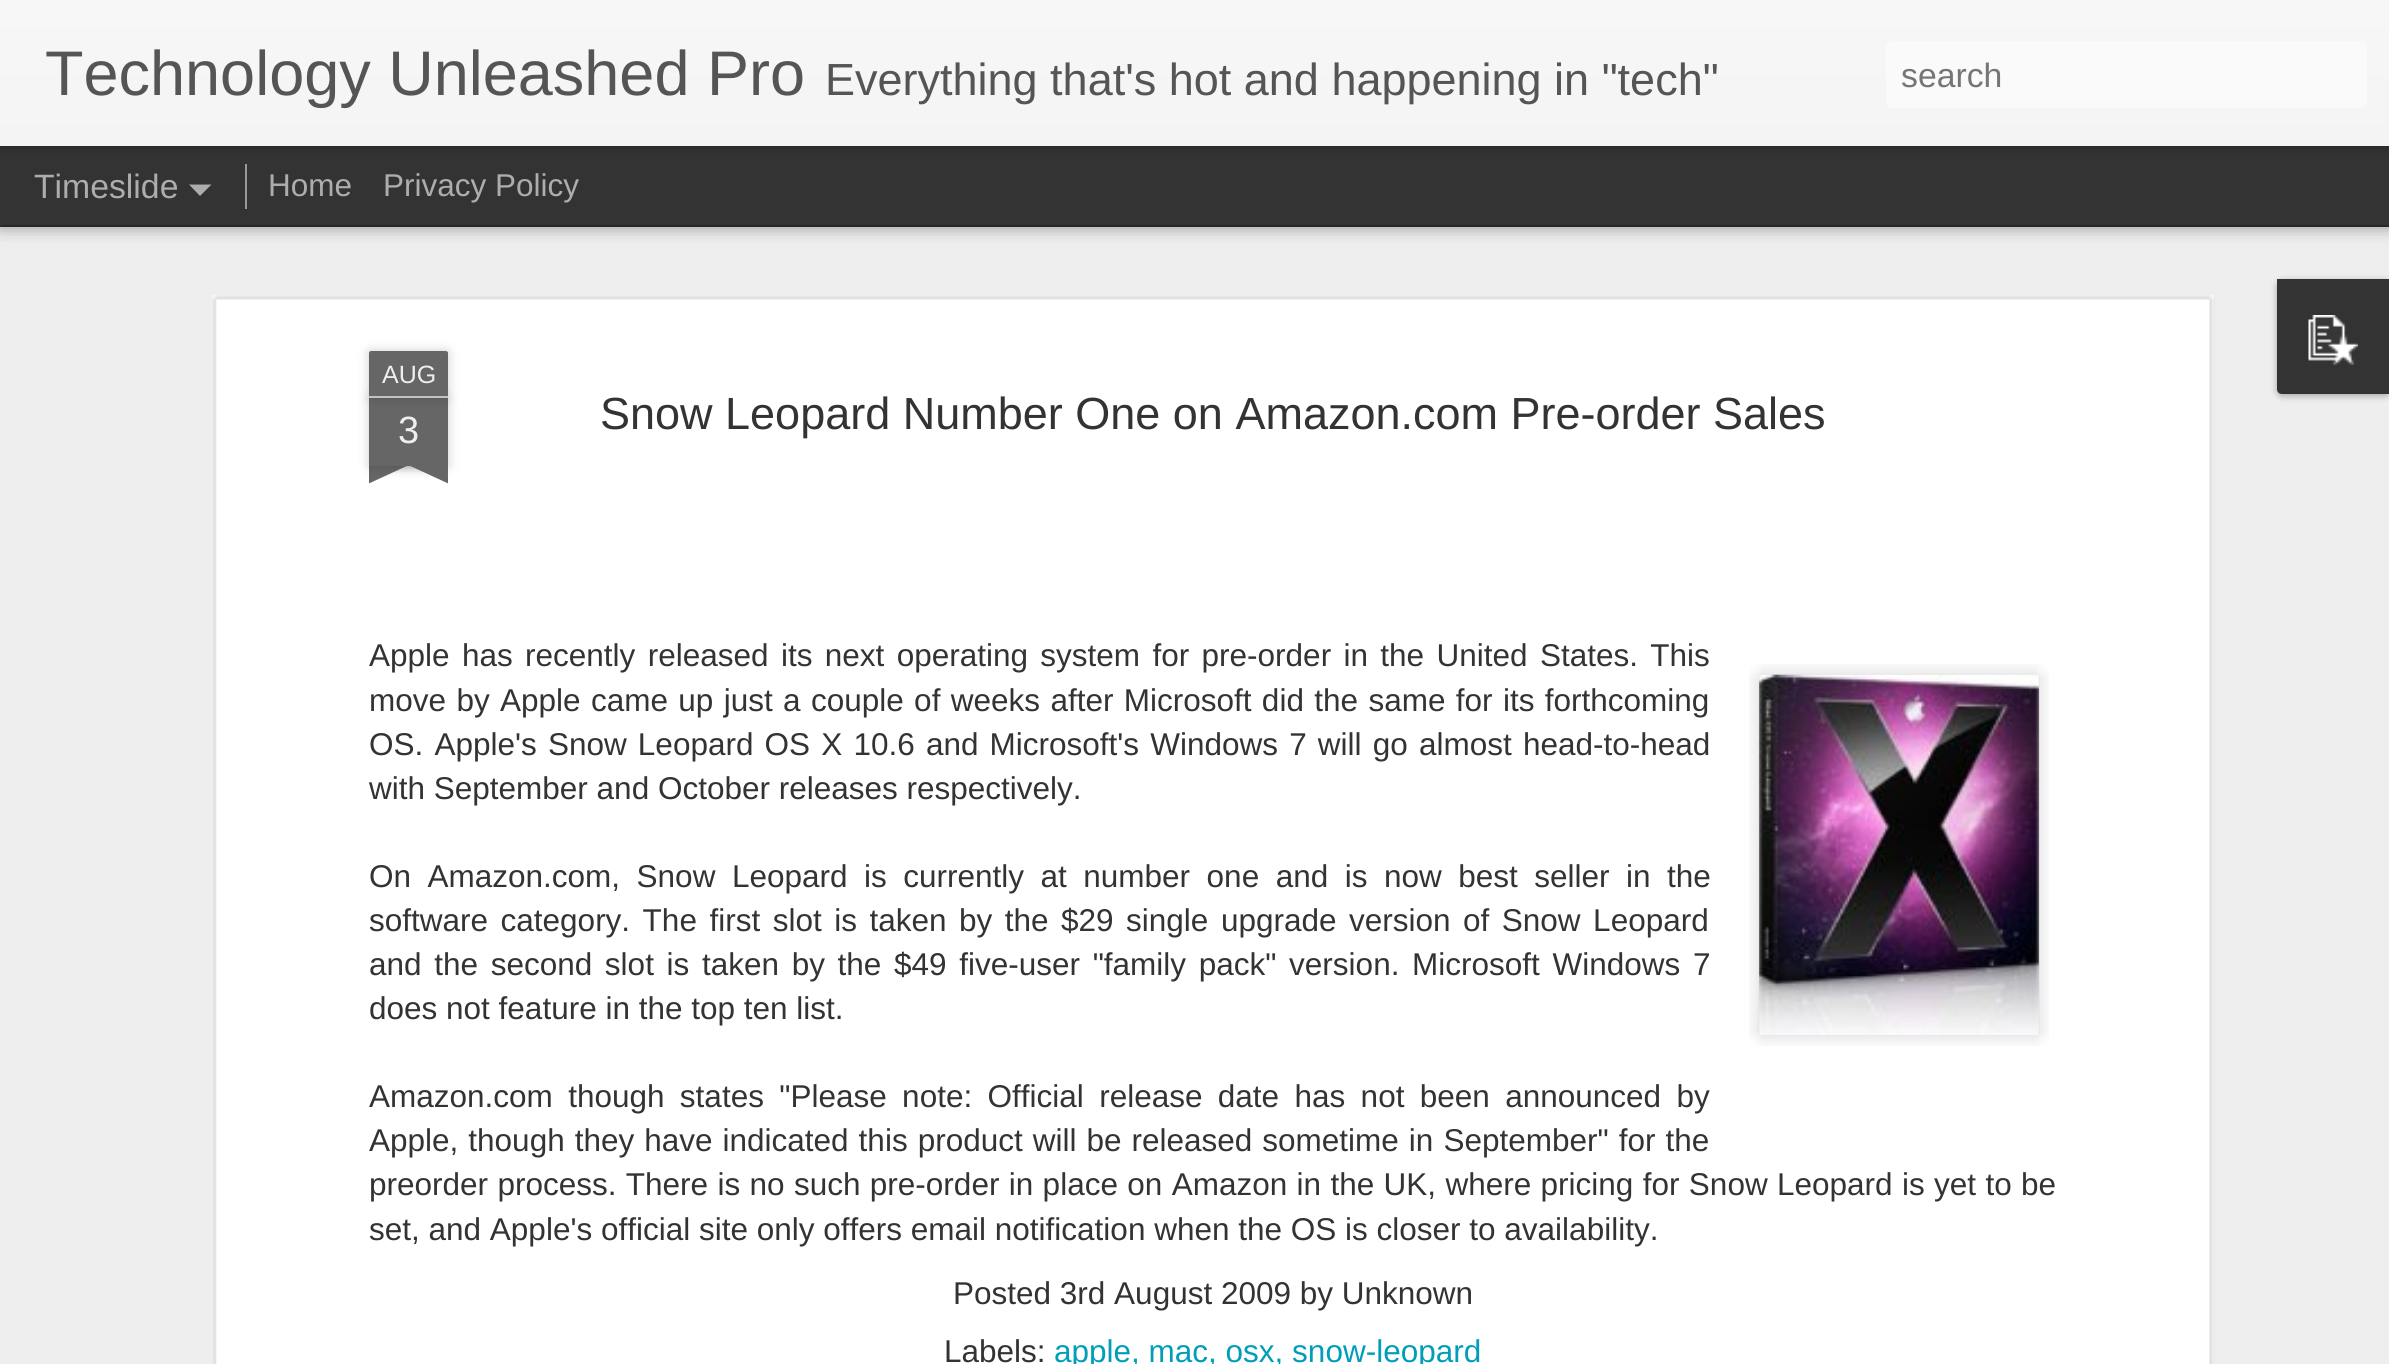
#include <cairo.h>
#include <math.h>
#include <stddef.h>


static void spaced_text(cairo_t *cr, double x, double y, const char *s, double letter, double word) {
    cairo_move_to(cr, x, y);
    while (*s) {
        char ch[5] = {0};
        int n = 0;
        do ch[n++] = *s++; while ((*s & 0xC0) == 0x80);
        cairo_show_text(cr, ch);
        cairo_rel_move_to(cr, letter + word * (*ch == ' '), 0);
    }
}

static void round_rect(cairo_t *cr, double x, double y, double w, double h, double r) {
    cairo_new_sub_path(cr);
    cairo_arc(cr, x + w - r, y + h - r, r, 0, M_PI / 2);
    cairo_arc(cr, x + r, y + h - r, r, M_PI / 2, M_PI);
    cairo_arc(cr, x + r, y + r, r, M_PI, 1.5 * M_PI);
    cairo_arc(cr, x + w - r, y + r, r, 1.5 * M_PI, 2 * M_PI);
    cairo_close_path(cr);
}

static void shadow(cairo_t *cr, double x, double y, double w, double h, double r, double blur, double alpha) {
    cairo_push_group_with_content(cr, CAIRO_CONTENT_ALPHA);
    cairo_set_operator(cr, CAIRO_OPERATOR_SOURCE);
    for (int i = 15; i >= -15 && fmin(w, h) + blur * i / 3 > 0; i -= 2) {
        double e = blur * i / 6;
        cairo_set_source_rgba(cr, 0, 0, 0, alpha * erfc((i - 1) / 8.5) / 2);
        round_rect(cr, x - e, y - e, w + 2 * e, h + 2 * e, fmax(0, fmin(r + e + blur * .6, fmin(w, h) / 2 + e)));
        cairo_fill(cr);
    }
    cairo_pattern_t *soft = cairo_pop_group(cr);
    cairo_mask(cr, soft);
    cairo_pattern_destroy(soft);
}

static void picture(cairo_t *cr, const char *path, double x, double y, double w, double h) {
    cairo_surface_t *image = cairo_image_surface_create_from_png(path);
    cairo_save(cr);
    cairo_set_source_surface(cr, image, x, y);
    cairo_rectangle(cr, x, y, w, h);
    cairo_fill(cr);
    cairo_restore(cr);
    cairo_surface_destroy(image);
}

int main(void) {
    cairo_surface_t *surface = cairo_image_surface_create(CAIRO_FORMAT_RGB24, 2389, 1364);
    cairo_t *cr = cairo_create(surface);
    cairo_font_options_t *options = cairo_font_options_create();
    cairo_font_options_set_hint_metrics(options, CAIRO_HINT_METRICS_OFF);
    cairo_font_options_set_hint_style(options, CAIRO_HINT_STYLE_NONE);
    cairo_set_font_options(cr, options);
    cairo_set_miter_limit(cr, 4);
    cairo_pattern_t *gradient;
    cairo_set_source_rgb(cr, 0.2, 0.2, 0.2);
    cairo_paint(cr);
    cairo_set_source_rgb(cr, 0.933, 0.933, 0.933);
    cairo_rectangle(cr, 0, 227, 2389, 1137);
    cairo_fill(cr);
    cairo_set_source_rgb(cr, 0, 0, 0);
    shadow(cr, 0, 146, 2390, 79, 0, 9, 0.5);
    cairo_set_source_rgb(cr, 0.2, 0.2, 0.2);
    cairo_rectangle(cr, 0, 146, 2389, 79);
    cairo_fill(cr);
    cairo_set_source_rgb(cr, 0, 0, 0);
    shadow(cr, 0, 0, 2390, 146, 0, 5.5, 0.3);
    gradient = cairo_pattern_create_linear(0, 0, 0, 146);
    cairo_pattern_add_color_stop_rgba(gradient, 0, 0.969, 0.969, 0.969, 1);
    cairo_pattern_add_color_stop_rgba(gradient, 1, 0.957, 0.957, 0.957, 1);
    cairo_set_source(cr, gradient);
    cairo_pattern_destroy(gradient);
    cairo_rectangle(cr, 0, 0, 2389, 146);
    cairo_fill(cr);
    cairo_select_font_face(cr, "Liberation Sans", CAIRO_FONT_SLANT_NORMAL, CAIRO_FONT_WEIGHT_NORMAL);
    cairo_set_font_size(cr, 63);
    cairo_set_source_rgb(cr, 0.333, 0.333, 0.333);
    cairo_move_to(cr, 45, 95);
    cairo_show_text(cr, "Technology Unleashed Pro");
    cairo_set_font_size(cr, 45);
    cairo_move_to(cr, 825, 95);
    cairo_show_text(cr, "Everything that's hot and happening in \"tech\"");
    cairo_set_source_rgb(cr, 0.98, 0.98, 0.98);
    round_rect(cr, 1886, 41, 481, 67, 7);
    cairo_fill(cr);
    cairo_set_font_size(cr, 33.75);
    cairo_set_source_rgb(cr, 0.459, 0.459, 0.459);
    cairo_move_to(cr, 1901, 87);
    cairo_show_text(cr, "search");
    cairo_set_source_rgb(cr, 0.678, 0.678, 0.678);
    cairo_move_to(cr, 34, 198);
    cairo_show_text(cr, "Timeslide");
    cairo_new_path(cr);
    cairo_move_to(cr, 189, 184.5);
    cairo_line_to(cr, 211.5, 184.5);
    cairo_line_to(cr, 200, 196);
    cairo_close_path(cr);
    cairo_fill(cr);
    cairo_set_source_rgb(cr, 0.6, 0.6, 0.6);
    cairo_rectangle(cr, 245, 164, 2, 45);
    cairo_fill(cr);
    cairo_set_font_size(cr, 31.5);
    cairo_set_source_rgb(cr, 0.678, 0.678, 0.678);
    cairo_move_to(cr, 268, 196);
    cairo_show_text(cr, "Home");
    cairo_move_to(cr, 383, 196);
    cairo_show_text(cr, "Privacy Policy");
    cairo_set_source_rgb(cr, 0, 0, 0);
    shadow(cr, 2277, 281, 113, 115, 5, 3.5, 0.3);
    cairo_set_source_rgb(cr, 0.2, 0.2, 0.2);
    cairo_new_path(cr);
    cairo_move_to(cr, 2277, 279);
    cairo_line_to(cr, 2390, 279);
    cairo_line_to(cr, 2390, 394);
    cairo_line_to(cr, 2282, 394);
    cairo_curve_to(cr, 2279, 394, 2277, 392, 2277, 389);
    cairo_close_path(cr);
    cairo_fill(cr);
    picture(cr, "img1.png", 2308, 315, 50, 51);
    cairo_set_source_rgb(cr, 1, 1, 1);
    cairo_rectangle(cr, 212, 295, 2002, 1069);
    cairo_fill(cr);
    picture(cr, "img2.png", 212, 295, 2003, 1069);
    cairo_set_source_rgb(cr, 0, 0, 0);
    shadow(cr, 369, 398, 79, 68, 0, 5.5, 0.2);
    cairo_set_source_rgb(cr, 0.4, 0.4, 0.4);
    cairo_rectangle(cr, 369, 398, 79, 68);
    cairo_fill(cr);
    cairo_set_source_rgb(cr, 0, 0, 0);
    shadow(cr, 369, 351, 79, 47, 2, 5.5, 0.2);
    cairo_set_source_rgb(cr, 0.4, 0.4, 0.4);
    cairo_new_path(cr);
    cairo_move_to(cr, 371, 351);
    cairo_line_to(cr, 446, 351);
    cairo_curve_to(cr, 447, 351, 448, 352, 448, 353);
    cairo_line_to(cr, 448, 398);
    cairo_line_to(cr, 369, 398);
    cairo_line_to(cr, 369, 353);
    cairo_curve_to(cr, 369, 352, 370, 351, 371, 351);
    cairo_close_path(cr);
    cairo_fill(cr);
    cairo_set_source_rgb(cr, 0.761, 0.761, 0.761);
    cairo_rectangle(cr, 369, 396, 79, 2);
    cairo_fill(cr);
    cairo_set_font_size(cr, 25);
    cairo_set_source_rgb(cr, 0.933, 0.933, 0.933);
    cairo_move_to(cr, 382, 383);
    cairo_show_text(cr, "AUG");
    cairo_set_font_size(cr, 38);
    cairo_move_to(cr, 398, 443);
    cairo_show_text(cr, "3");
    cairo_save(cr);
    cairo_rectangle(cr, 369, 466, 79, 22);
    cairo_clip(cr);
    cairo_set_source_rgb(cr, 0, 0, 0);
    shadow(cr, 349, 443, 112, 23, 0, 5.5, 0.2);
    cairo_restore(cr);
    cairo_save(cr);
    cairo_rectangle(cr, 369, 466, 79, 22);
    cairo_clip(cr);
    cairo_set_source_rgb(cr, 0.4, 0.4, 0.4);
    cairo_new_path(cr);
    cairo_move_to(cr, 349, 468);
    cairo_line_to(cr, 451, 421);
    cairo_line_to(cr, 461, 441);
    cairo_line_to(cr, 359, 488);
    cairo_close_path(cr);
    cairo_fill(cr);
    cairo_restore(cr);
    cairo_save(cr);
    cairo_rectangle(cr, 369, 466, 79, 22);
    cairo_clip(cr);
    cairo_set_source_rgb(cr, 0, 0, 0);
    shadow(cr, 356, 443, 112, 23, 0, 5.5, 0.2);
    cairo_restore(cr);
    cairo_save(cr);
    cairo_rectangle(cr, 369, 466, 79, 22);
    cairo_clip(cr);
    cairo_set_source_rgb(cr, 0.4, 0.4, 0.4);
    cairo_new_path(cr);
    cairo_move_to(cr, 366, 421);
    cairo_line_to(cr, 467, 468);
    cairo_line_to(cr, 458, 488);
    cairo_line_to(cr, 356, 441);
    cairo_close_path(cr);
    cairo_fill(cr);
    cairo_restore(cr);
    cairo_set_font_size(cr, 45);
    cairo_set_source_rgb(cr, 0.2, 0.2, 0.2);
    cairo_move_to(cr, 600, 429);
    cairo_show_text(cr, "Snow Leopard Number One on Amazon.com Pre-order Sales");
    cairo_set_font_size(cr, 31.5);
    spaced_text(cr, 369, 666, "Apple has recently released its next operating system for pre-order in the United States. This", 0, 3.6);
    spaced_text(cr, 369, 711, "move by Apple came up just a couple of weeks after Microsoft did the same for its forthcoming", 0, 1.6);
    picture(cr, "img3.png", 1749, 664, 300, 382);
    picture(cr, "img4.png", 1759, 674, 281, 362);
    spaced_text(cr, 369, 755, "OS. Apple's Snow Leopard OS X 10.6 and Microsoft's Windows 7 will go almost head-to-head", 0, 2.4);
    cairo_move_to(cr, 369, 799);
    cairo_show_text(cr, "with September and October releases respectively.");
    spaced_text(cr, 369, 887, "On Amazon.com, Snow Leopard is currently at number one and is now best seller in the", 0, 7.75);
    spaced_text(cr, 369, 931, "software category. The first slot is taken by the $29 single upgrade version of Snow Leopard", 0, 3.75);
    spaced_text(cr, 369, 975, "and the second slot is taken by the $49 five-user \"family pack\" version. Microsoft Windows 7", 0, 3.9);
    cairo_move_to(cr, 369, 1019);
    cairo_show_text(cr, "does not feature in the top ten list.");
    spaced_text(cr, 369, 1107, "Amazon.com though states \"Please note: Official release date has not been announced by", 0, 6.6);
    spaced_text(cr, 369, 1151, "Apple, though they have indicated this product will be released sometime in September\" for the", 0, 1.25);
    spaced_text(cr, 369, 1195, "preorder process. There is no such pre-order in place on Amazon in the UK, where pricing for Snow Leopard is yet to be", 0, 0.6);
    cairo_move_to(cr, 369, 1240);
    cairo_show_text(cr, "set, and Apple's official site only offers email notification when the OS is closer to availability.");
    cairo_move_to(cr, 953, 1304);
    cairo_show_text(cr, "Posted 3rd August 2009 by Unknown");
    cairo_move_to(cr, 944, 1362);
    cairo_show_text(cr, "Labels:");
    cairo_set_source_rgb(cr, 0, 0.62, 0.722);
    cairo_move_to(cr, 1054, 1362);
    cairo_show_text(cr, "apple, mac, osx, snow-leopard");
    cairo_surface_write_to_png(surface, "page.png");
    cairo_font_options_destroy(options);
    cairo_destroy(cr);
    cairo_surface_destroy(surface);
    return 0;
}
